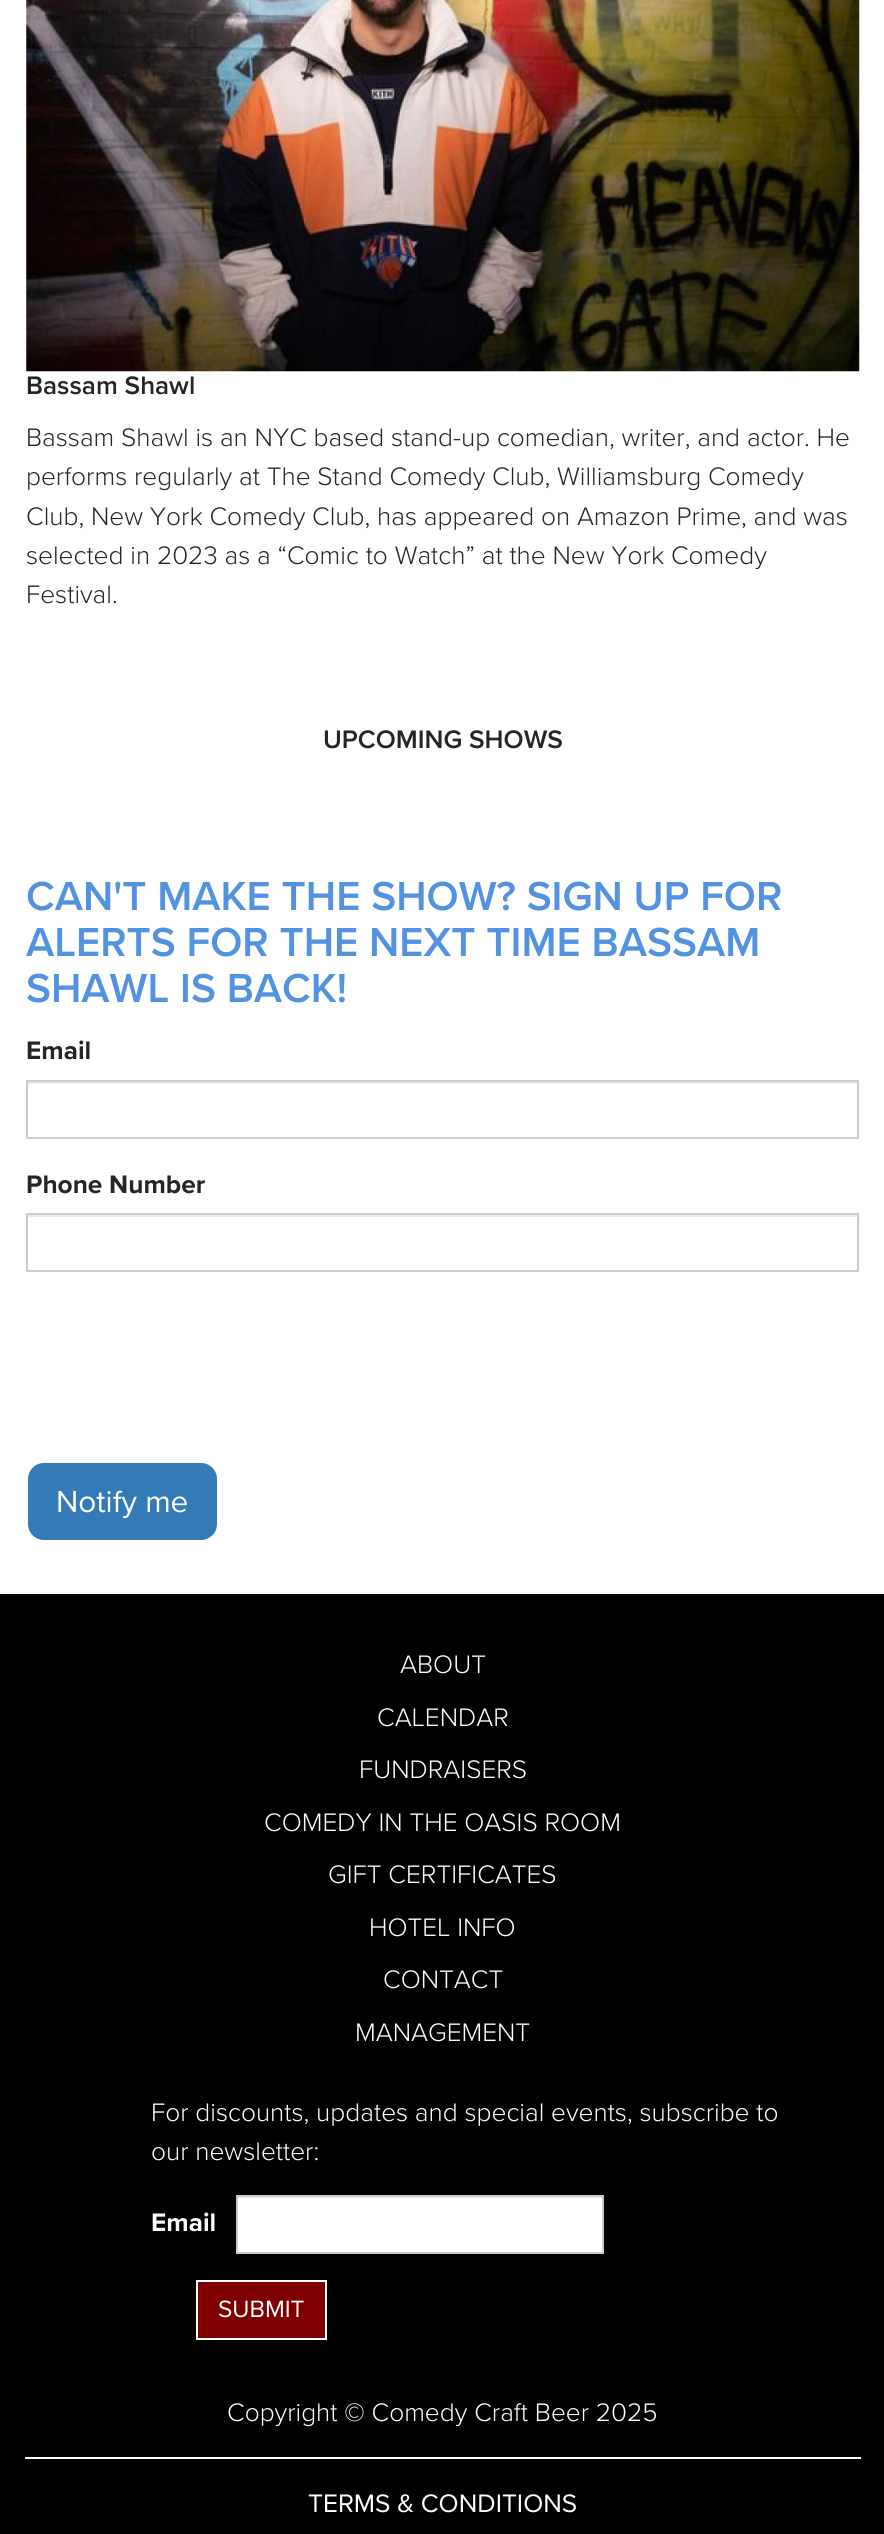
#include <cairo.h>
#include <math.h>
#include <stddef.h>


static void round_rect(cairo_t *cr, double x, double y, double w, double h, double r) {
    cairo_new_sub_path(cr);
    cairo_arc(cr, x + w - r, y + h - r, r, 0, M_PI / 2);
    cairo_arc(cr, x + r, y + h - r, r, M_PI / 2, M_PI);
    cairo_arc(cr, x + r, y + r, r, M_PI, 1.5 * M_PI);
    cairo_arc(cr, x + w - r, y + r, r, 1.5 * M_PI, 2 * M_PI);
    cairo_close_path(cr);
}

static void picture(cairo_t *cr, const char *path, double x, double y, double w, double h) {
    cairo_surface_t *image = cairo_image_surface_create_from_png(path);
    cairo_save(cr);
    cairo_set_source_surface(cr, image, x, y);
    cairo_rectangle(cr, x, y, w, h);
    cairo_fill(cr);
    cairo_restore(cr);
    cairo_surface_destroy(image);
}

int main(void) {
    cairo_surface_t *surface = cairo_image_surface_create(CAIRO_FORMAT_RGB24, 884, 2534);
    cairo_t *cr = cairo_create(surface);
    cairo_font_options_t *options = cairo_font_options_create();
    cairo_font_options_set_hint_metrics(options, CAIRO_HINT_METRICS_OFF);
    cairo_font_options_set_hint_style(options, CAIRO_HINT_STYLE_NONE);
    cairo_set_font_options(cr, options);
    cairo_set_miter_limit(cr, 4);
    cairo_set_source_rgb(cr, 1, 1, 1);
    cairo_paint(cr);
    picture(cr, "img1.png", 26, 0, 834, 372);
    cairo_select_font_face(cr, "Proxima Nova SemiBold", CAIRO_FONT_SLANT_NORMAL, CAIRO_FONT_WEIGHT_NORMAL);
    cairo_set_font_size(cr, 26.25);
    cairo_set_source_rgb(cr, 0.145, 0.145, 0.145);
    cairo_move_to(cr, 26, 394);
    cairo_show_text(cr, "Bassam Shawl");
    cairo_select_font_face(cr, "Proxima Nova Light", CAIRO_FONT_SLANT_NORMAL, CAIRO_FONT_WEIGHT_NORMAL);
    cairo_move_to(cr, 26, 446);
    cairo_show_text(cr, "Bassam Shawl is an NYC based stand-up comedian, writer, and actor. He");
    cairo_move_to(cr, 26, 485);
    cairo_show_text(cr, "performs regularly at The Stand Comedy Club, Williamsburg Comedy");
    cairo_move_to(cr, 26, 525);
    cairo_show_text(cr, "Club, New York Comedy Club, has appeared on Amazon Prime, and was");
    cairo_move_to(cr, 26, 564);
    cairo_show_text(cr, "selected in 2023 as a “Comic to Watch” at the New York Comedy");
    cairo_move_to(cr, 26, 603);
    cairo_show_text(cr, "Festival.");
    cairo_select_font_face(cr, "Proxima Nova SemiBold", CAIRO_FONT_SLANT_NORMAL, CAIRO_FONT_WEIGHT_NORMAL);
    cairo_move_to(cr, 323, 748);
    cairo_show_text(cr, "UPCOMING SHOWS");
    cairo_set_font_size(cr, 42);
    cairo_set_source_rgb(cr, 0.322, 0.573, 0.882);
    cairo_move_to(cr, 26, 910);
    cairo_show_text(cr, "CAN'T MAKE THE SHOW? SIGN UP FOR");
    cairo_move_to(cr, 26, 956);
    cairo_show_text(cr, "ALERTS FOR THE NEXT TIME BASSAM");
    cairo_move_to(cr, 26, 1002);
    cairo_show_text(cr, "SHAWL IS BACK!");
    cairo_select_font_face(cr, "Proxima Nova", CAIRO_FONT_SLANT_NORMAL, CAIRO_FONT_WEIGHT_BOLD);
    cairo_set_font_size(cr, 26.25);
    cairo_set_source_rgb(cr, 0.145, 0.145, 0.145);
    cairo_move_to(cr, 26, 1059);
    cairo_show_text(cr, "Email");
    cairo_set_source_rgb(cr, 0.925, 0.925, 0.925);
    cairo_rectangle(cr, 28, 1082, 830, 2);
    cairo_fill(cr);
    cairo_rectangle(cr, 27, 1081, 831, 57);
    cairo_set_source_rgb(cr, 0.8, 0.8, 0.8);
    cairo_stroke(cr);
    cairo_set_source_rgb(cr, 0.145, 0.145, 0.145);
    cairo_move_to(cr, 26, 1193);
    cairo_show_text(cr, "Phone Number");
    cairo_set_source_rgb(cr, 0.925, 0.925, 0.925);
    cairo_rectangle(cr, 28, 1215, 830, 2);
    cairo_fill(cr);
    cairo_rectangle(cr, 27, 1214, 831, 57);
    cairo_set_source_rgb(cr, 0.8, 0.8, 0.8);
    cairo_stroke(cr);
    cairo_set_source_rgb(cr, 0.2, 0.478, 0.718);
    round_rect(cr, 27, 1462, 191, 79, 17);
    cairo_fill_preserve(cr);
    cairo_set_source_rgb(cr, 1, 1, 1);
    cairo_stroke(cr);
    cairo_select_font_face(cr, "Proxima Nova", CAIRO_FONT_SLANT_NORMAL, CAIRO_FONT_WEIGHT_NORMAL);
    cairo_set_font_size(cr, 31.5);
    cairo_move_to(cr, 56, 1512);
    cairo_show_text(cr, "Notify me");
    cairo_set_source_rgb(cr, 0, 0, 0);
    cairo_rectangle(cr, 0, 1594, 884, 940);
    cairo_fill(cr);
    cairo_select_font_face(cr, "Proxima Nova Light", CAIRO_FONT_SLANT_NORMAL, CAIRO_FONT_WEIGHT_NORMAL);
    cairo_set_font_size(cr, 26.25);
    cairo_set_source_rgb(cr, 1, 1, 1);
    cairo_move_to(cr, 400, 1673);
    cairo_show_text(cr, "ABOUT");
    cairo_move_to(cr, 377, 1726);
    cairo_show_text(cr, "CALENDAR");
    cairo_move_to(cr, 359, 1778);
    cairo_show_text(cr, "FUNDRAISERS");
    cairo_move_to(cr, 264, 1831);
    cairo_show_text(cr, "COMEDY IN THE OASIS ROOM");
    cairo_move_to(cr, 328, 1883);
    cairo_show_text(cr, "GIFT CERTIFICATES");
    cairo_move_to(cr, 369, 1936);
    cairo_show_text(cr, "HOTEL INFO");
    cairo_move_to(cr, 383, 1988);
    cairo_show_text(cr, "CONTACT");
    cairo_move_to(cr, 355, 2041);
    cairo_show_text(cr, "MANAGEMENT");
    cairo_move_to(cr, 151, 2121);
    cairo_show_text(cr, "For discounts, updates and special events, subscribe to");
    cairo_move_to(cr, 151, 2160);
    cairo_show_text(cr, "our newsletter:");
    cairo_select_font_face(cr, "Proxima Nova", CAIRO_FONT_SLANT_NORMAL, CAIRO_FONT_WEIGHT_BOLD);
    cairo_move_to(cr, 151, 2231);
    cairo_show_text(cr, "Email");
    cairo_rectangle(cr, 238, 2198, 364, 54);
    cairo_fill(cr);
    cairo_set_source_rgb(cr, 0.925, 0.925, 0.925);
    cairo_rectangle(cr, 238, 2197, 364, 1);
    cairo_fill(cr);
    cairo_rectangle(cr, 237, 2196, 366, 57);
    cairo_set_source_rgb(cr, 0.8, 0.8, 0.8);
    cairo_stroke(cr);
    cairo_set_source_rgb(cr, 0.498, 0, 0);
    cairo_rectangle(cr, 197, 2281, 129, 58);
    cairo_fill_preserve(cr);
    cairo_set_source_rgb(cr, 1, 1, 1);
    cairo_stroke(cr);
    cairo_select_font_face(cr, "Proxima Nova", CAIRO_FONT_SLANT_NORMAL, CAIRO_FONT_WEIGHT_NORMAL);
    cairo_set_font_size(cr, 24.5);
    cairo_move_to(cr, 218, 2317);
    cairo_show_text(cr, "SUBMIT");
    cairo_rectangle(cr, 25, 2457, 836, 2);
    cairo_fill(cr);
    cairo_select_font_face(cr, "Proxima Nova Light", CAIRO_FONT_SLANT_NORMAL, CAIRO_FONT_WEIGHT_NORMAL);
    cairo_set_font_size(cr, 26.25);
    cairo_move_to(cr, 227, 2421);
    cairo_show_text(cr, "Copyright © Comedy Craft Beer 2025");
    cairo_select_font_face(cr, "Proxima Nova", CAIRO_FONT_SLANT_NORMAL, CAIRO_FONT_WEIGHT_NORMAL);
    cairo_move_to(cr, 308, 2512);
    cairo_show_text(cr, "TERMS & CONDITIONS");
    cairo_surface_write_to_png(surface, "page.png");
    cairo_font_options_destroy(options);
    cairo_destroy(cr);
    cairo_surface_destroy(surface);
    return 0;
}
